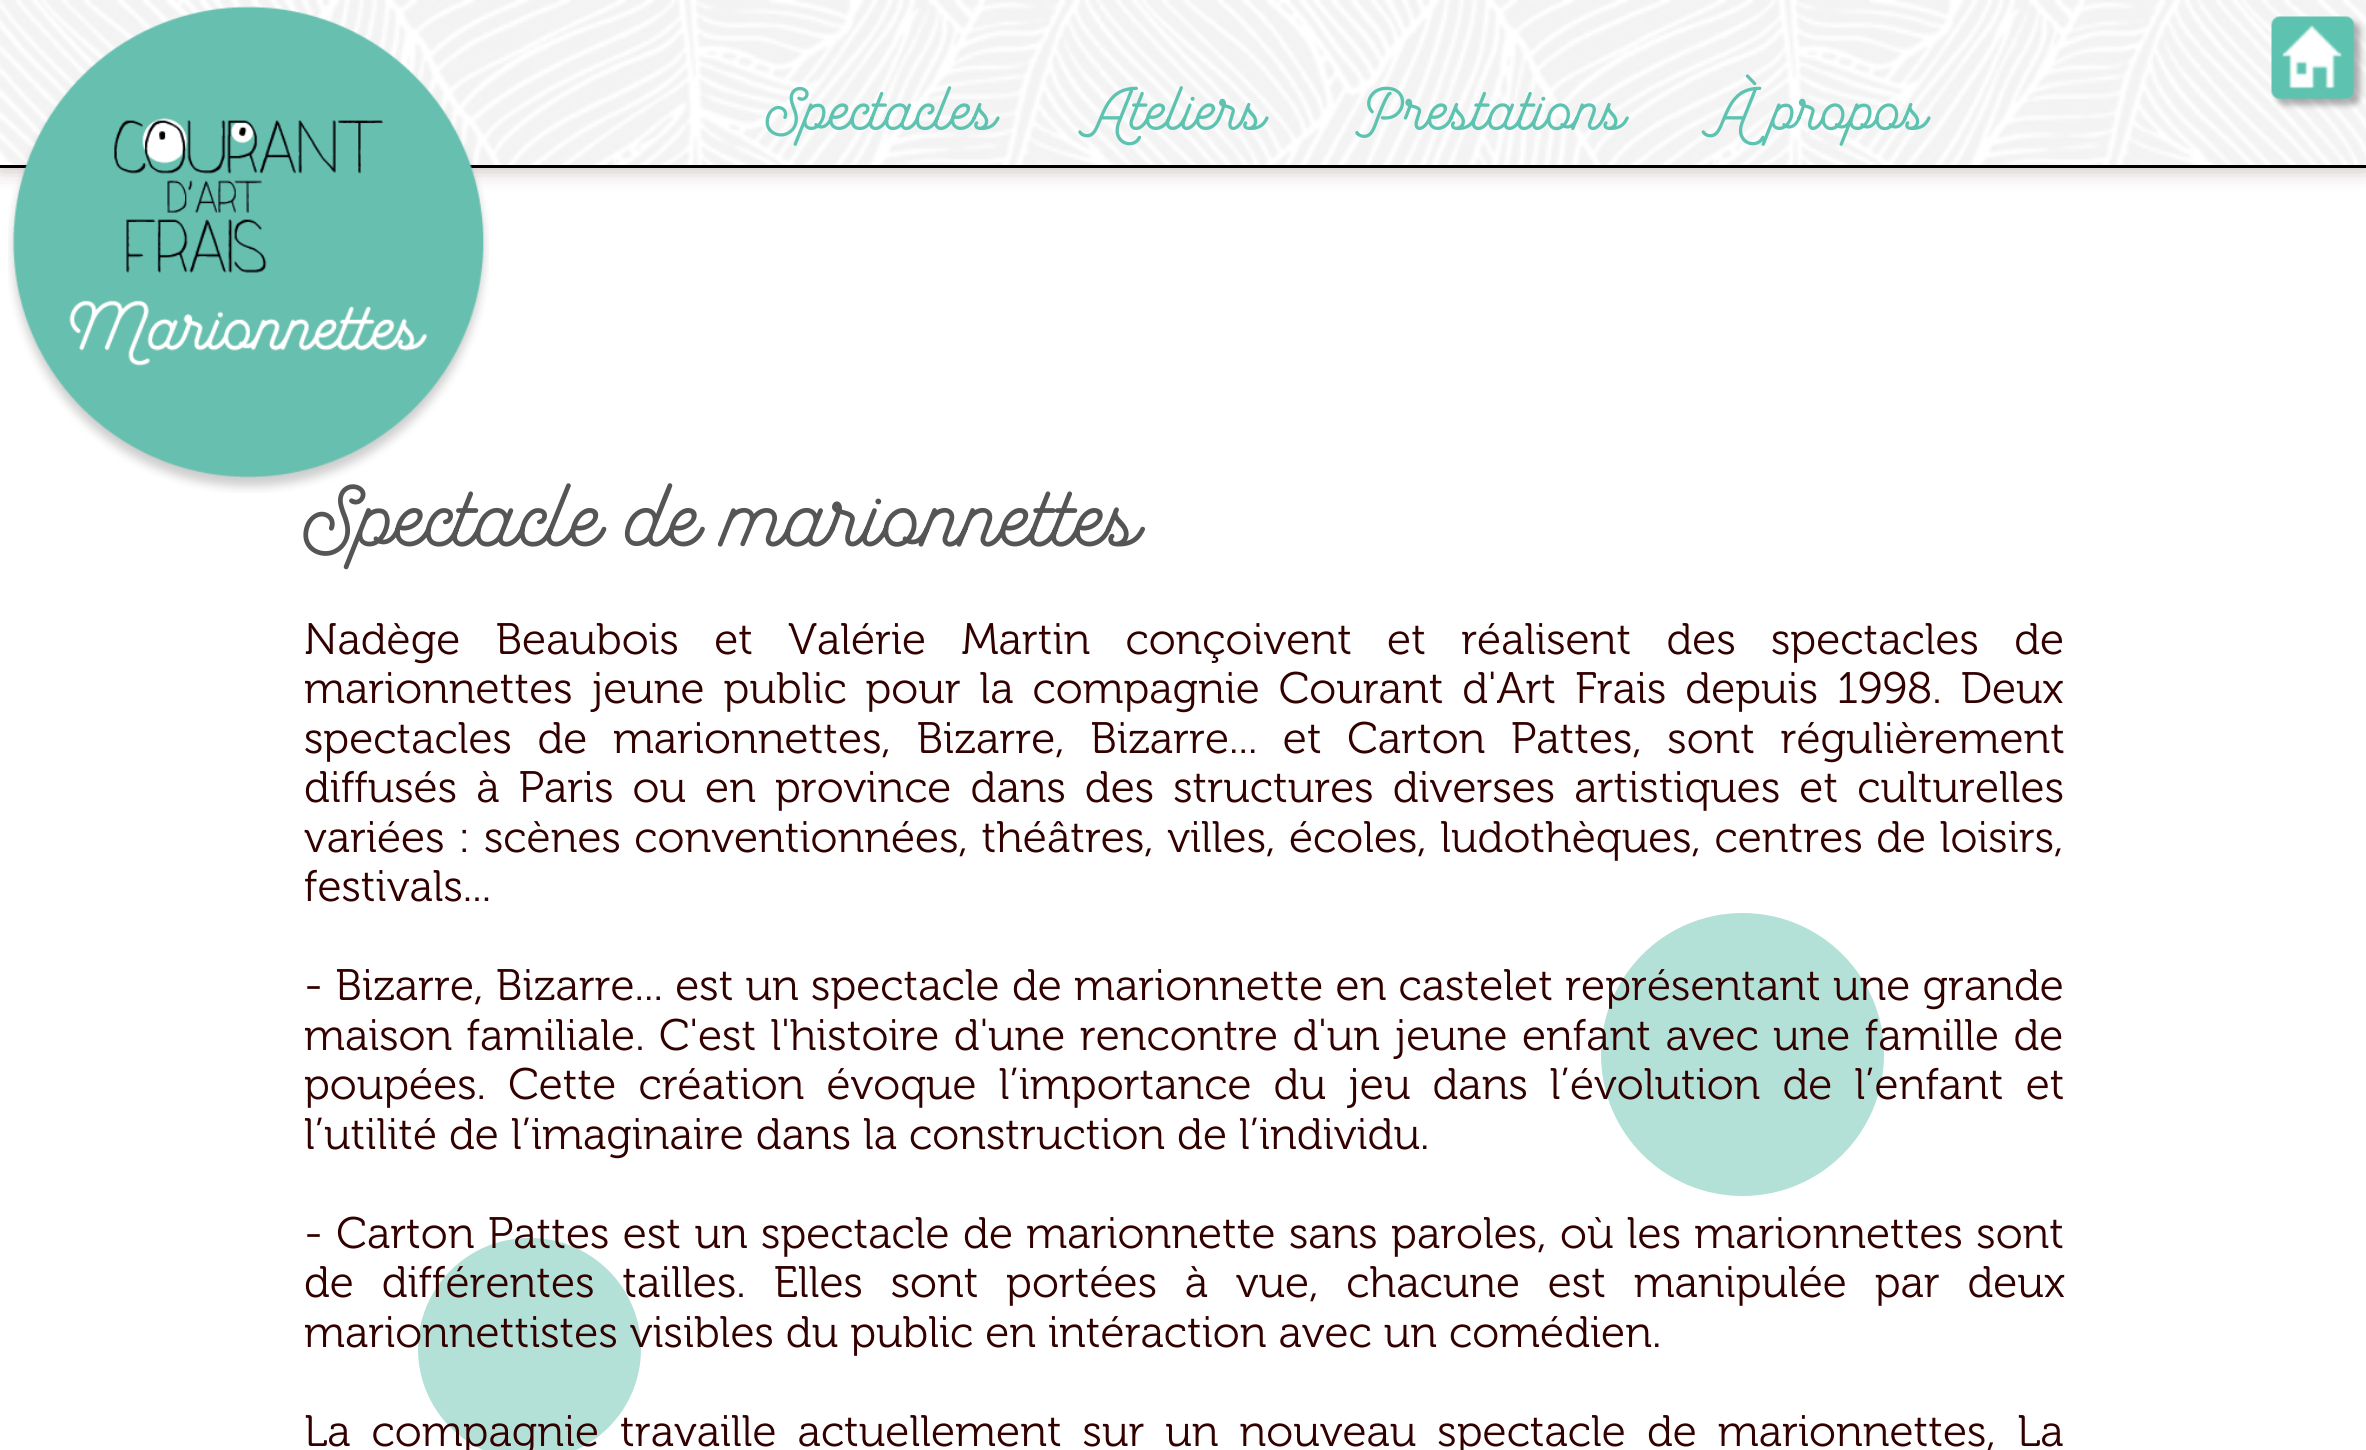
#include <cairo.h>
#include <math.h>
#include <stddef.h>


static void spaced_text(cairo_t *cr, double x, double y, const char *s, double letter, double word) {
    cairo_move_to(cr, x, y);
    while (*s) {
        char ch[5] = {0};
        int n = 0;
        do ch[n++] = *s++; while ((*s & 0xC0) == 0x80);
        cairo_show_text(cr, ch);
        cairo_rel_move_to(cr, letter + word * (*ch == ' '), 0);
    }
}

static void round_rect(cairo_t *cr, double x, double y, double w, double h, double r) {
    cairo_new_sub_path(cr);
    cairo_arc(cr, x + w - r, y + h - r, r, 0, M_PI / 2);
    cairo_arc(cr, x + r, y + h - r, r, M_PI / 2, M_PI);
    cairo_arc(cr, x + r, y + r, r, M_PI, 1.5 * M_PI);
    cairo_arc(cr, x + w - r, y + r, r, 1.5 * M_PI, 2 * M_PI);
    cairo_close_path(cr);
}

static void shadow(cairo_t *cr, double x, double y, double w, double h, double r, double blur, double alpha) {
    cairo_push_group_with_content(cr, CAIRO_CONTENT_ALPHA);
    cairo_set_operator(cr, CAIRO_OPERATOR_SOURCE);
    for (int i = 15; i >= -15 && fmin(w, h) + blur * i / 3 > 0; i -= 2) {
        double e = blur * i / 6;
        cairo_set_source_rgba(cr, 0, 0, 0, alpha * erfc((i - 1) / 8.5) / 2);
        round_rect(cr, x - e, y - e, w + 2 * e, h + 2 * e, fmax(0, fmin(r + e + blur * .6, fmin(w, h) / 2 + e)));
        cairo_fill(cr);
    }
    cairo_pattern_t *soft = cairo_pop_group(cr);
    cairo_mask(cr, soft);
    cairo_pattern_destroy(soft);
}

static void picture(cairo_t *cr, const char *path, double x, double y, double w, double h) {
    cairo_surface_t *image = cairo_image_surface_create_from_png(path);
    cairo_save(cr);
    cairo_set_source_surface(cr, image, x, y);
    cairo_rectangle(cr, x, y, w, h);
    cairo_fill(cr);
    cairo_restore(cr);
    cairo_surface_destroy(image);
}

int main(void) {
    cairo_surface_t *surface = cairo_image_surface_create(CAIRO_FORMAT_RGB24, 2366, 1450);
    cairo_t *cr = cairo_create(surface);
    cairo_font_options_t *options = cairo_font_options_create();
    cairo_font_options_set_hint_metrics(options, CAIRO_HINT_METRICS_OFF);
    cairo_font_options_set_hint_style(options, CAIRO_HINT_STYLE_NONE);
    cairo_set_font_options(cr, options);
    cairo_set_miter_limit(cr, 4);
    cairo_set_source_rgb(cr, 1, 1, 1);
    cairo_paint(cr);
    cairo_set_source_rgb(cr, 0.196, 0, 0);
    shadow(cr, 0, 0, 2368, 168, 0, 11, 0.3);
    picture(cr, "img1.png", 0, 0, 2366, 165);
    cairo_set_source_rgb(cr, 0, 0, 0);
    cairo_rectangle(cr, 0, 165, 2366, 3);
    cairo_fill(cr);
    cairo_select_font_face(cr, "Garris", CAIRO_FONT_SLANT_NORMAL, CAIRO_FONT_WEIGHT_NORMAL);
    cairo_set_font_size(cr, 79.25);
    cairo_set_source_rgb(cr, 0.333, 0.333, 0.333);
    cairo_move_to(cr, 304, 545);
    cairo_show_text(cr, "Spectacle de marionnettes");
    picture(cr, "img2.png", 8, 6, 481, 487);
    cairo_set_font_size(cr, 55);
    cairo_set_source_rgb(cr, 0.365, 0.765, 0.69);
    cairo_move_to(cr, 766, 129);
    cairo_show_text(cr, "Spectacles");
    cairo_move_to(cr, 1089, 129);
    cairo_show_text(cr, "Ateliers");
    cairo_move_to(cr, 1358, 129);
    cairo_show_text(cr, "Prestations");
    cairo_move_to(cr, 1718, 129);
    cairo_show_text(cr, "À propos");
    cairo_set_source_rgb(cr, 0, 0, 0);
    shadow(cr, 2277, 22, 83, 83, 8, 3, 0.3);
    picture(cr, "img3.png", 2271, 16, 84, 84);
    cairo_select_font_face(cr, "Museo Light", CAIRO_FONT_SLANT_NORMAL, CAIRO_FONT_WEIGHT_NORMAL);
    cairo_set_font_size(cr, 44);
    cairo_set_source_rgb(cr, 0.2, 0, 0);
    spaced_text(cr, 304, 654, "Nadège Beaubois et Valérie Martin conçoivent et réalisent des spectacles de", 0, 23.25);
    spaced_text(cr, 304, 703, "marionnettes jeune public pour la compagnie Courant d'Art Frais depuis 1998. Deux", 0, 6.9);
    spaced_text(cr, 304, 753, "spectacles de marionnettes, Bizarre, Bizarre... et Carton Pattes, sont régulièrement", 0, 13.5);
    spaced_text(cr, 304, 802, "diffusés à Paris ou en province dans des structures diverses artistiques et culturelles", 0, 7.1);
    spaced_text(cr, 304, 852, "variées : scènes conventionnées, théâtres, villes, écoles, ludothèques, centres de loisirs,", 0, 1.5);
    cairo_move_to(cr, 304, 901);
    cairo_show_text(cr, "festivals...");
    cairo_set_source_rgb(cr, 0.702, 0.878, 0.843);
    cairo_new_path(cr);
    cairo_arc(cr, 1742.5, 1054.5, 141.5, 0, 2 * M_PI);
    cairo_fill(cr);
    cairo_set_source_rgb(cr, 0.2, 0, 0);
    spaced_text(cr, 304, 1000, "- Bizarre, Bizarre... est un spectacle de marionnette en castelet représentant une grande", 0, 0.25);
    spaced_text(cr, 304, 1050, "maison familiale. C'est l'histoire d'une rencontre d'un jeune enfant avec une famille de", 0, 2.4);
    spaced_text(cr, 304, 1099, "poupées. Cette création évoque l’importance du jeu dans l’évolution de l’enfant et", 0, 10.1);
    cairo_move_to(cr, 304, 1149);
    cairo_show_text(cr, "l’utilité de l’imaginaire dans la construction de l’individu.");
    cairo_set_source_rgb(cr, 0.702, 0.878, 0.843);
    round_rect(cr, 418, 1238, 223, 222, 111);
    cairo_fill(cr);
    cairo_set_source_rgb(cr, 0.2, 0, 0);
    spaced_text(cr, 304, 1248, "- Carton Pattes est un spectacle de marionnette sans paroles, où les marionnettes sont", 0, 1.4);
    spaced_text(cr, 304, 1297, "de différentes tailles. Elles sont portées à vue, chacune est manipulée par deux", 0, 15.75);
    cairo_move_to(cr, 304, 1347);
    cairo_show_text(cr, "marionnettistes visibles du public en intéraction avec un comédien.");
    spaced_text(cr, 304, 1446, "La compagnie travaille actuellement sur un nouveau spectacle de marionnettes, La", 0, 9);
    cairo_surface_write_to_png(surface, "page.png");
    cairo_font_options_destroy(options);
    cairo_destroy(cr);
    cairo_surface_destroy(surface);
    return 0;
}
